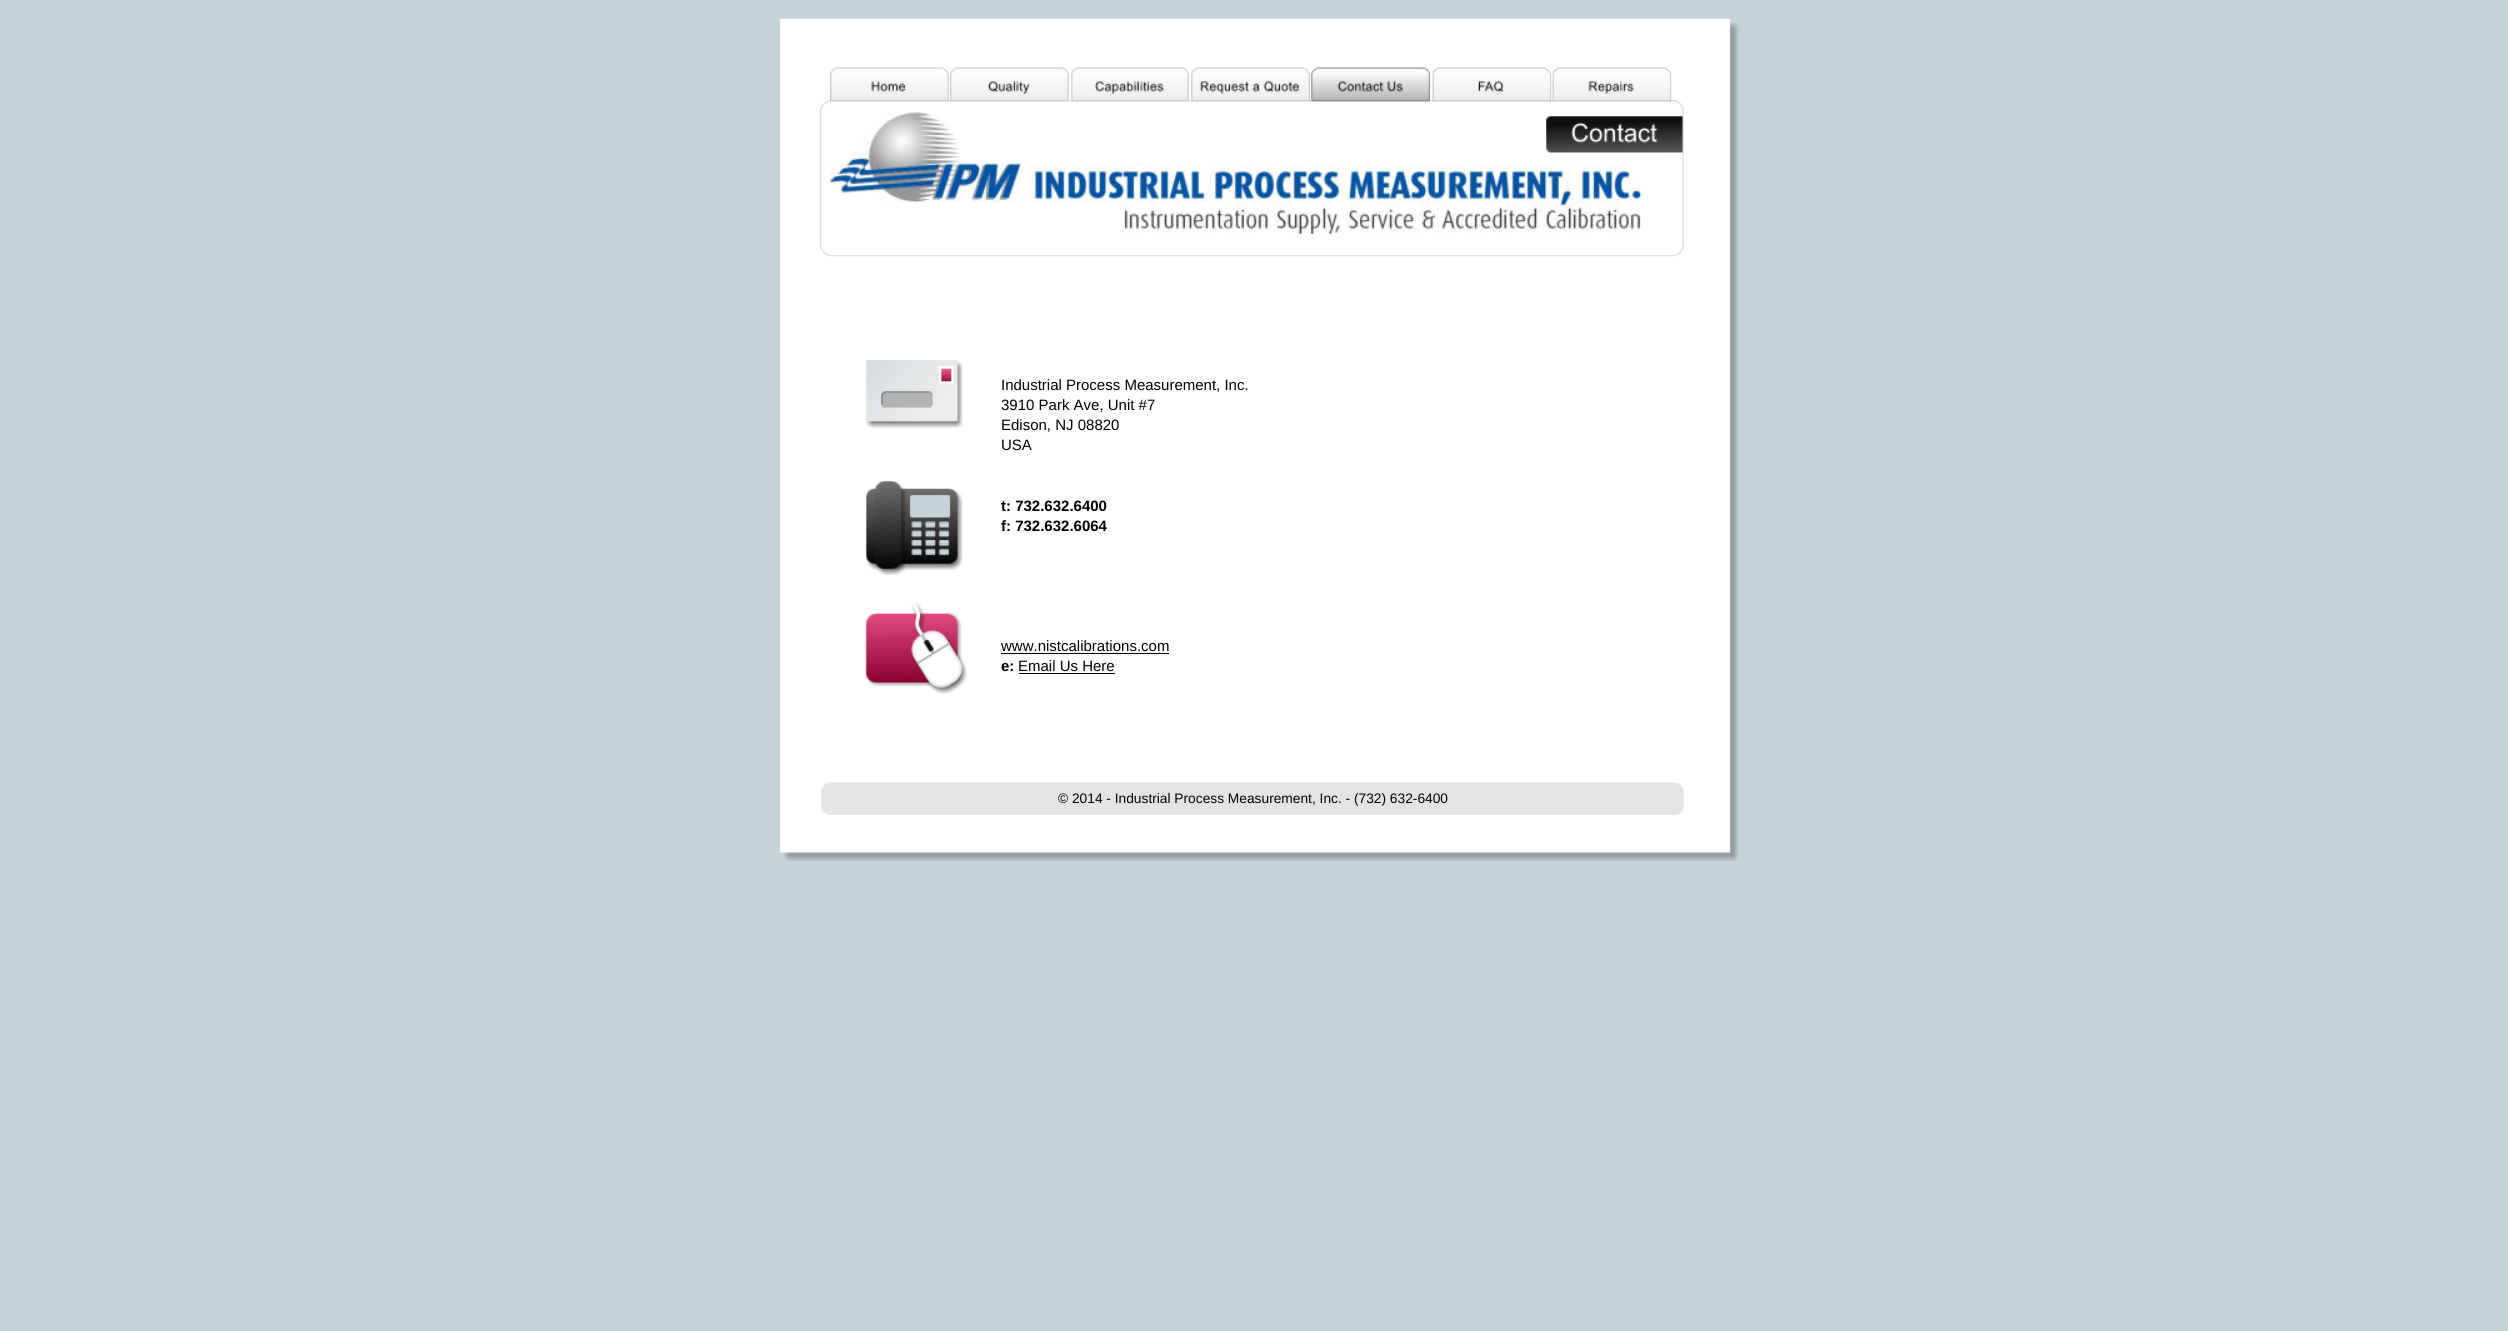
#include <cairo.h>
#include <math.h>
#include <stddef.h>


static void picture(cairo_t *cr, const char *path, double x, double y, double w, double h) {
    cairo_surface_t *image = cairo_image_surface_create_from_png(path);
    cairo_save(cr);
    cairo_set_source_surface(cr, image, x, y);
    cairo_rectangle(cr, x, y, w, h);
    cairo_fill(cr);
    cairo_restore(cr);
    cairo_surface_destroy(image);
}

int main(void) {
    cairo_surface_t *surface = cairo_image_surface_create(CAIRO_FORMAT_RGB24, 2508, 1331);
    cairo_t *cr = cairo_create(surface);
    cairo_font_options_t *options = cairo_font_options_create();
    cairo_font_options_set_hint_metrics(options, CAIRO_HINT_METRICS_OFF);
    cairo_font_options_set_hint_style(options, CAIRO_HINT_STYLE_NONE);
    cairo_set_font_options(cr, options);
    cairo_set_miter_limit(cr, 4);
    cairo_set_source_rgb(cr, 0.773, 0.824, 0.843);
    cairo_paint(cr);
    picture(cr, "img1.png", 780, 18, 959, 843);
    picture(cr, "img10.png", 820, 100, 864, 157);
    picture(cr, "img2.png", 830, 67, 119, 35);
    picture(cr, "img3.png", 950, 67, 119, 35);
    picture(cr, "img4.png", 1071, 67, 118, 35);
    picture(cr, "img5.png", 1191, 67, 119, 35);
    picture(cr, "img6.png", 1311, 67, 119, 35);
    picture(cr, "img7.png", 1311, 67, 119, 35);
    picture(cr, "img8.png", 1432, 67, 120, 35);
    picture(cr, "img9.png", 1552, 67, 120, 35);
    picture(cr, "img11.png", 830, 112, 813, 122);
    picture(cr, "img12.png", 1546, 116, 137, 37);
    picture(cr, "img13.png", 866, 360, 97, 68);
    cairo_select_font_face(cr, "Liberation Sans", CAIRO_FONT_SLANT_NORMAL, CAIRO_FONT_WEIGHT_NORMAL);
    cairo_set_font_size(cr, 15);
    cairo_set_source_rgb(cr, 0, 0, 0);
    cairo_move_to(cr, 1001, 390);
    cairo_show_text(cr, "Industrial Process Measurement, Inc.");
    cairo_move_to(cr, 1001, 410);
    cairo_show_text(cr, "3910 Park Ave, Unit #7");
    cairo_move_to(cr, 1001, 430);
    cairo_show_text(cr, "Edison, NJ 08820");
    cairo_move_to(cr, 1001, 450);
    cairo_show_text(cr, "USA");
    cairo_select_font_face(cr, "Liberation Sans", CAIRO_FONT_SLANT_NORMAL, CAIRO_FONT_WEIGHT_BOLD);
    cairo_move_to(cr, 1001, 511);
    cairo_show_text(cr, "t: 732.632.6400");
    cairo_move_to(cr, 1001, 531);
    cairo_show_text(cr, "f: 732.632.6064");
    cairo_select_font_face(cr, "Liberation Sans", CAIRO_FONT_SLANT_NORMAL, CAIRO_FONT_WEIGHT_NORMAL);
    cairo_move_to(cr, 1001, 651);
    cairo_show_text(cr, "www.nistcalibrations.com");
    cairo_rectangle(cr, 1001, 653, 168, 1);
    cairo_fill(cr);
    cairo_select_font_face(cr, "Liberation Sans", CAIRO_FONT_SLANT_NORMAL, CAIRO_FONT_WEIGHT_BOLD);
    cairo_move_to(cr, 1001, 671);
    cairo_show_text(cr, "e:");
    cairo_select_font_face(cr, "Liberation Sans", CAIRO_FONT_SLANT_NORMAL, CAIRO_FONT_WEIGHT_NORMAL);
    cairo_move_to(cr, 1018, 671);
    cairo_show_text(cr, "Email Us Here");
    cairo_rectangle(cr, 1019, 673, 96, 1);
    cairo_fill(cr);
    picture(cr, "img14.png", 866, 481, 97, 94);
    picture(cr, "img15.png", 865, 602, 102, 92);
    picture(cr, "img16.png", 821, 782, 863, 33);
    cairo_set_font_size(cr, 13.75);
    cairo_move_to(cr, 1058, 803);
    cairo_show_text(cr, "© 2014 - Industrial Process Measurement, Inc. - (732) 632-6400");
    cairo_surface_write_to_png(surface, "page.png");
    cairo_font_options_destroy(options);
    cairo_destroy(cr);
    cairo_surface_destroy(surface);
    return 0;
}
